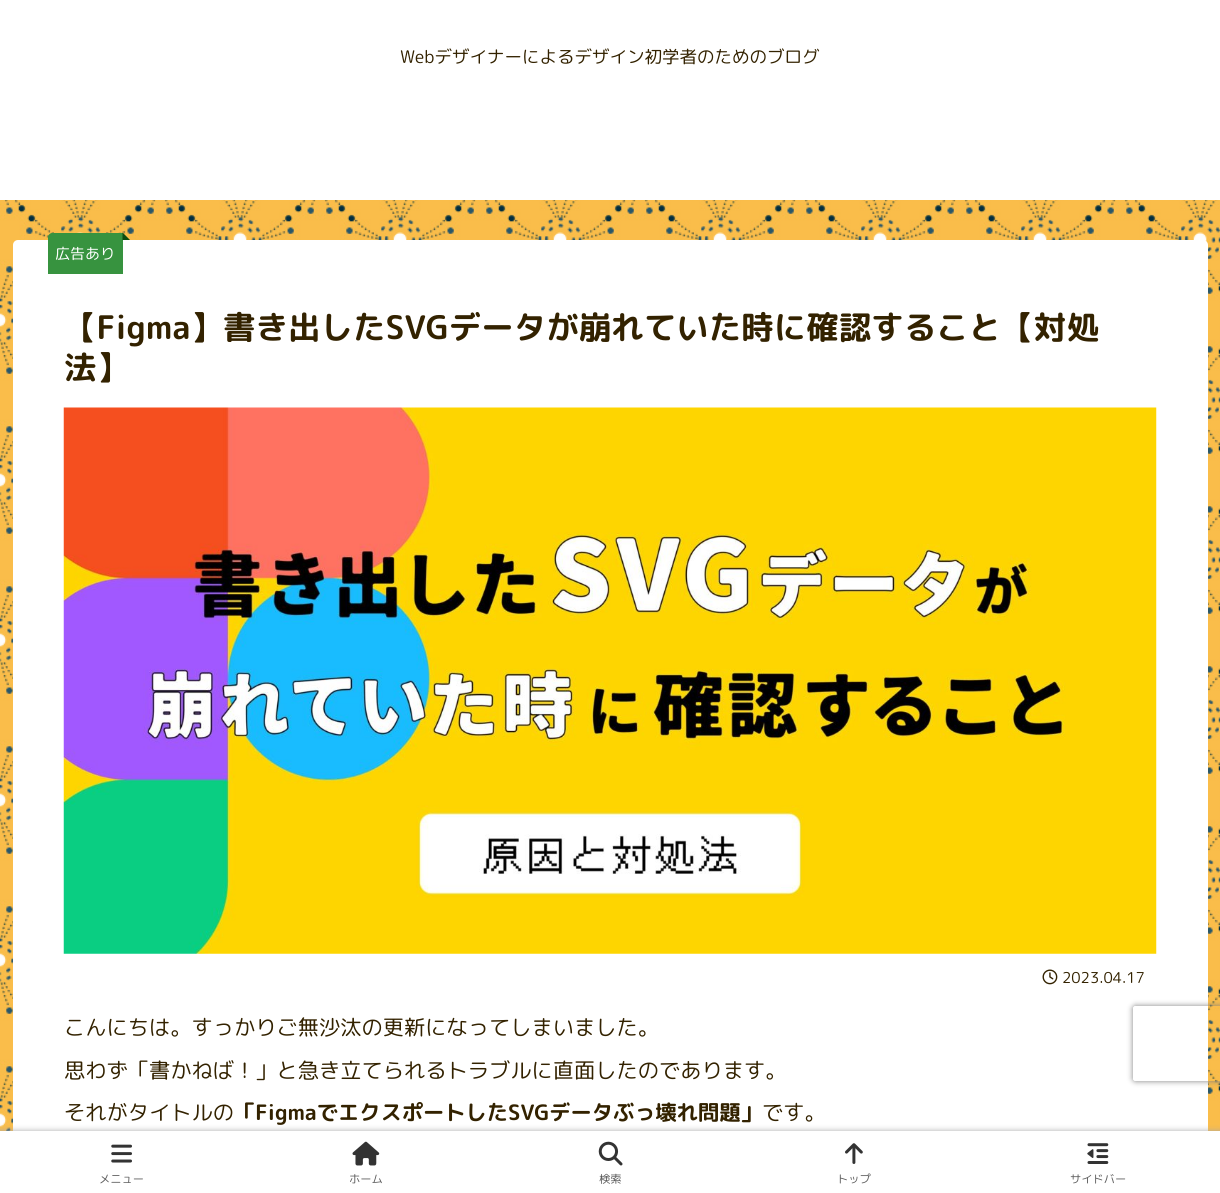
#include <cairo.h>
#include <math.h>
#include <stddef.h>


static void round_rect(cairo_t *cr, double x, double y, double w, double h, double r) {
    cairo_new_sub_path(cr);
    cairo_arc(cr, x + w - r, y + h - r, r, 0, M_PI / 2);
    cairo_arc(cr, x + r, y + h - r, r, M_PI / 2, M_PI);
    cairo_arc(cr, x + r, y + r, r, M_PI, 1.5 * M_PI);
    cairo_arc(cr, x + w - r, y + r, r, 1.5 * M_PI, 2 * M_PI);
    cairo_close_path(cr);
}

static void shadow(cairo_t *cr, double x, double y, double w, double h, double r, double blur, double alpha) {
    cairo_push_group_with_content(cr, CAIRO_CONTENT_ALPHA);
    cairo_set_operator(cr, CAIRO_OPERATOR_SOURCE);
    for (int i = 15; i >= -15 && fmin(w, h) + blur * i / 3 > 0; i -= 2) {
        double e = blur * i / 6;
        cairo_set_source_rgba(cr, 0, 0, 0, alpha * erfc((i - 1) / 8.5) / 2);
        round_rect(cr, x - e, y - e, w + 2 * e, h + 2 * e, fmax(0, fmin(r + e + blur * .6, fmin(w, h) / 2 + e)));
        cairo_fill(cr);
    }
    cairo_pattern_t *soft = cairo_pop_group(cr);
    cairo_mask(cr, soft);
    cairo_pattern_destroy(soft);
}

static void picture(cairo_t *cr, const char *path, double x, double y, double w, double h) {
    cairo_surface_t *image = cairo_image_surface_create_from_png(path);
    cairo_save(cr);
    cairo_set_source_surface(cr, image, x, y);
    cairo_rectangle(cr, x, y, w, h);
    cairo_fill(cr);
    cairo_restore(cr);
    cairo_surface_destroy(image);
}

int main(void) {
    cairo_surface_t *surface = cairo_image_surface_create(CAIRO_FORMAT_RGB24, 1220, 1193);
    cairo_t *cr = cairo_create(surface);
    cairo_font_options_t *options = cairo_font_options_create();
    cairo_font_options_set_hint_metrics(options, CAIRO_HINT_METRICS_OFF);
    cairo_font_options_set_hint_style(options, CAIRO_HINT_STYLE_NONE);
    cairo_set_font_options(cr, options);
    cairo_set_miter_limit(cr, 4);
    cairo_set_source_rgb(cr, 1, 1, 1);
    cairo_paint(cr);
    picture(cr, "img1.png", 0, 200, 1220, 931);
    cairo_select_font_face(cr, "Rounded Mplus 1c", CAIRO_FONT_SLANT_NORMAL, CAIRO_FONT_WEIGHT_NORMAL);
    cairo_set_font_size(cr, 17.5);
    cairo_set_source_rgb(cr, 0.2, 0.133, 0);
    cairo_move_to(cr, 400, 63);
    cairo_show_text(cr, "Webデザイナーによるデザイン初学者のためのブログ");
    cairo_set_source_rgb(cr, 1, 1, 1);
    round_rect(cr, 13, 240, 1195, 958, 5);
    cairo_fill(cr);
    cairo_set_source_rgb(cr, 0.216, 0.576, 0.247);
    cairo_new_path(cr);
    cairo_move_to(cr, 52, 233);
    cairo_line_to(cr, 123, 233);
    cairo_line_to(cr, 123, 274);
    cairo_line_to(cr, 48, 274);
    cairo_line_to(cr, 48, 237);
    cairo_curve_to(cr, 48, 235, 50, 233, 52, 233);
    cairo_close_path(cr);
    cairo_fill(cr);
    cairo_set_source_rgb(cr, 0.051, 0.298, 0.063);
    cairo_new_path(cr);
    cairo_move_to(cr, 130, 240);
    cairo_line_to(cr, 122.5, 240);
    cairo_line_to(cr, 122.5, 232.5);
    cairo_close_path(cr);
    cairo_fill(cr);
    cairo_set_font_size(cr, 15);
    cairo_set_source_rgb(cr, 1, 1, 1);
    cairo_move_to(cr, 55, 259);
    cairo_show_text(cr, "広告あり");
    cairo_select_font_face(cr, "Rounded Mplus 1c Bold", CAIRO_FONT_SLANT_NORMAL, CAIRO_FONT_WEIGHT_BOLD);
    cairo_set_font_size(cr, 32.5);
    cairo_set_source_rgb(cr, 0.2, 0.133, 0);
    cairo_move_to(cr, 64, 339);
    cairo_show_text(cr, "【Figma】書き出したSVGデータが崩れていた時に確認すること【対処");
    cairo_move_to(cr, 64, 379);
    cairo_show_text(cr, "法】");
    picture(cr, "img2.png", 63, 407, 1094, 547);
    picture(cr, "img3.png", 1042, 969, 16, 16);
    cairo_select_font_face(cr, "Rounded Mplus 1c", CAIRO_FONT_SLANT_NORMAL, CAIRO_FONT_WEIGHT_NORMAL);
    cairo_set_font_size(cr, 15);
    cairo_move_to(cr, 1062, 983);
    cairo_show_text(cr, "2023.04.17");
    cairo_set_font_size(cr, 21.25);
    cairo_move_to(cr, 64, 1035);
    cairo_show_text(cr, "こんにちは。すっかりご無沙汰の更新になってしまいました。");
    cairo_move_to(cr, 64, 1078);
    cairo_show_text(cr, "思わず「書かねば！」と急き立てられるトラブルに直面したのであります。");
    cairo_move_to(cr, 64, 1120);
    cairo_show_text(cr, "それがタイトルの");
    cairo_select_font_face(cr, "Rounded Mplus 1c Bold", CAIRO_FONT_SLANT_NORMAL, CAIRO_FONT_WEIGHT_BOLD);
    cairo_move_to(cr, 234, 1120);
    cairo_show_text(cr, "「FigmaでエクスポートしたSVGデータぶっ壊れ問題」");
    cairo_select_font_face(cr, "Rounded Mplus 1c", CAIRO_FONT_SLANT_NORMAL, CAIRO_FONT_WEIGHT_NORMAL);
    cairo_move_to(cr, 762, 1120);
    cairo_show_text(cr, "です。");
    cairo_set_source_rgb(cr, 0.663, 0.663, 0.663);
    shadow(cr, 0, 1131, 1220, 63, 0, 3, 1);
    cairo_set_source_rgb(cr, 1, 1, 1);
    cairo_rectangle(cr, 0, 1131, 1220, 62);
    cairo_fill(cr);
    picture(cr, "img4.png", 111, 1144, 21, 19);
    cairo_set_font_size(cr, 11.25);
    cairo_set_source_rgb(cr, 0.361, 0.361, 0.361);
    cairo_move_to(cr, 99, 1183);
    cairo_show_text(cr, "メニュー");
    picture(cr, "img5.png", 352, 1141, 28, 25);
    cairo_move_to(cr, 349, 1183);
    cairo_show_text(cr, "ホーム");
    picture(cr, "img6.png", 598, 1141, 25, 25);
    cairo_move_to(cr, 599, 1183);
    cairo_show_text(cr, "検索");
    picture(cr, "img7.png", 845, 1143, 18, 21);
    cairo_move_to(cr, 837, 1183);
    cairo_show_text(cr, "トップ");
    picture(cr, "img8.png", 1087, 1143, 22, 21);
    cairo_move_to(cr, 1070, 1183);
    cairo_show_text(cr, "サイドバー");
    cairo_save(cr);
    cairo_set_fill_rule(cr, CAIRO_FILL_RULE_EVEN_ODD);
    cairo_new_path(cr);
    cairo_move_to(cr, 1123, 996);
    cairo_line_to(cr, 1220, 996);
    cairo_line_to(cr, 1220, 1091);
    cairo_line_to(cr, 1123, 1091);
    cairo_close_path(cr);
    cairo_move_to(cr, 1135.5, 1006);
    cairo_line_to(cr, 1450.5, 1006);
    cairo_curve_to(cr, 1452, 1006, 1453, 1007, 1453, 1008.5);
    cairo_line_to(cr, 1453, 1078.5);
    cairo_curve_to(cr, 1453, 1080, 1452, 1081, 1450.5, 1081);
    cairo_line_to(cr, 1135.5, 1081);
    cairo_curve_to(cr, 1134, 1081, 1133, 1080, 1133, 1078.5);
    cairo_line_to(cr, 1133, 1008.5);
    cairo_curve_to(cr, 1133, 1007, 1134, 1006, 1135.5, 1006);
    cairo_close_path(cr);
    cairo_clip(cr);
    cairo_set_source_rgb(cr, 0.502, 0.502, 0.502);
    shadow(cr, 1133, 1006, 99, 75, 2.5, 3, 1);
    cairo_restore(cr);
    cairo_surface_write_to_png(surface, "page.png");
    cairo_font_options_destroy(options);
    cairo_destroy(cr);
    cairo_surface_destroy(surface);
    return 0;
}
